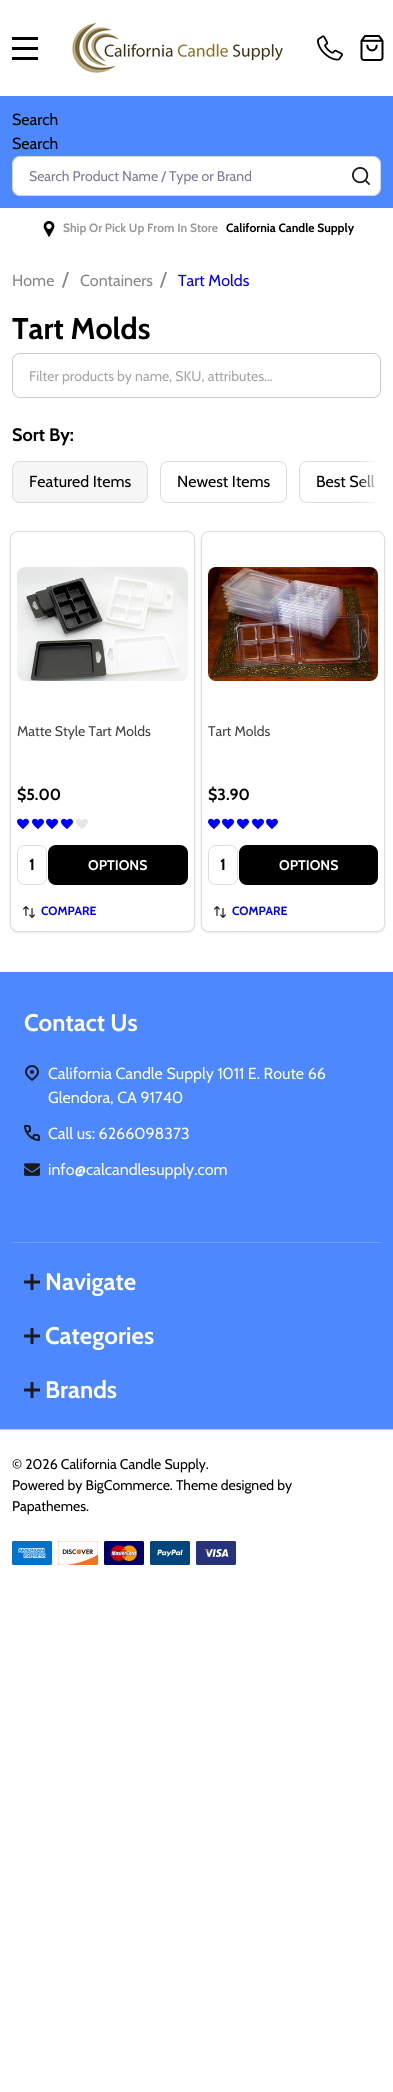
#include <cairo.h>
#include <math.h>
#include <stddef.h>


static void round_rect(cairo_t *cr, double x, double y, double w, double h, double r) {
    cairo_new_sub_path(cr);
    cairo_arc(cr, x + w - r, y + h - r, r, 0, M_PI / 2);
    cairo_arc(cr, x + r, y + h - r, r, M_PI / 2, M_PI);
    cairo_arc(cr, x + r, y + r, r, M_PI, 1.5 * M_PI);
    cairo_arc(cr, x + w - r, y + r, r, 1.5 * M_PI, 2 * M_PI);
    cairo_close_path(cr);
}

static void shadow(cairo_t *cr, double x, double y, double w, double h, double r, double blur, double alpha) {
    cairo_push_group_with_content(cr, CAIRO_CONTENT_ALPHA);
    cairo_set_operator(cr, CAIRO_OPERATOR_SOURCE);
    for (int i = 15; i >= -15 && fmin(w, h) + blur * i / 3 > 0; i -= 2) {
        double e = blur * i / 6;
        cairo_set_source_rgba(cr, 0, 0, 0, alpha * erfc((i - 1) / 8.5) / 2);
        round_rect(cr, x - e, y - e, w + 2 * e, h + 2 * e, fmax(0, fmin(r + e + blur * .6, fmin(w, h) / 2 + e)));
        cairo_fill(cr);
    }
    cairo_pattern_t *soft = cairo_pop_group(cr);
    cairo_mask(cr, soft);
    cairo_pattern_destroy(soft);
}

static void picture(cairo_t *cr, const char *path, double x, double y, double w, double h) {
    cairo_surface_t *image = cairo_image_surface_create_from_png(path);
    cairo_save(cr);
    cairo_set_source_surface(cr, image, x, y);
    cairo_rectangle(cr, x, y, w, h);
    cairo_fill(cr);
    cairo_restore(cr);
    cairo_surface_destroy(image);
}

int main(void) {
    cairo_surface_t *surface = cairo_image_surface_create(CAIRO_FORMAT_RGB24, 393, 2092);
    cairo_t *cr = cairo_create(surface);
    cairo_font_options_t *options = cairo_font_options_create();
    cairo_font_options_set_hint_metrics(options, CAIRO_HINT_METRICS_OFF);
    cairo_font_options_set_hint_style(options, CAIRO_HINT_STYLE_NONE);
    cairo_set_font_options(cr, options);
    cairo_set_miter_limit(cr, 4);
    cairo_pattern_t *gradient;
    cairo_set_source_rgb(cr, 1, 1, 1);
    cairo_paint(cr);
    cairo_set_source_rgb(cr, 0, 0, 0);
    cairo_rectangle(cr, 12, 47, 26, 3);
    cairo_fill(cr);
    cairo_rectangle(cr, 12, 37, 26, 3);
    cairo_fill(cr);
    cairo_rectangle(cr, 12, 57, 26, 3);
    cairo_fill(cr);
    picture(cr, "img1.png", 72, 22, 211, 51);
    picture(cr, "img2.png", 317, 35, 26, 26);
    picture(cr, "img3.png", 360, 35, 24, 26);
    cairo_set_source_rgb(cr, 0.302, 0.533, 1);
    cairo_rectangle(cr, 0, 96, 393, 112);
    cairo_fill(cr);
    cairo_select_font_face(cr, "Cabin", CAIRO_FONT_SLANT_NORMAL, CAIRO_FONT_WEIGHT_NORMAL);
    cairo_set_font_size(cr, 16);
    cairo_set_source_rgb(cr, 0, 0, 0);
    cairo_move_to(cr, 12, 125);
    cairo_show_text(cr, "Search");
    cairo_move_to(cr, 12, 149);
    cairo_show_text(cr, "Search");
    cairo_set_source_rgb(cr, 1, 1, 1);
    round_rect(cr, 12.5, 156.5, 368, 39, 7.5);
    cairo_fill_preserve(cr);
    cairo_set_source_rgb(cr, 0.839, 0.839, 0.839);
    cairo_set_line_width(cr, 1);
    cairo_stroke(cr);
    cairo_set_font_size(cr, 14);
    cairo_set_source_rgb(cr, 0.478, 0.478, 0.592);
    cairo_move_to(cr, 29, 181);
    cairo_show_text(cr, "Search Product Name / Type or Brand");
    picture(cr, "img4.png", 352, 167, 18, 18);
    picture(cr, "img5.png", 43, 221, 12, 16);
    cairo_select_font_face(cr, "Cabin", CAIRO_FONT_SLANT_NORMAL, CAIRO_FONT_WEIGHT_BOLD);
    cairo_set_font_size(cr, 12);
    cairo_set_source_rgb(cr, 0.6, 0.6, 0.6);
    cairo_move_to(cr, 63, 232);
    cairo_show_text(cr, "Ship Or Pick Up From In Store");
    cairo_set_source_rgb(cr, 0, 0, 0);
    cairo_move_to(cr, 226, 232);
    cairo_show_text(cr, "California Candle Supply");
    cairo_select_font_face(cr, "Cabin", CAIRO_FONT_SLANT_NORMAL, CAIRO_FONT_WEIGHT_NORMAL);
    cairo_set_font_size(cr, 16);
    cairo_set_source_rgb(cr, 0.529, 0.529, 0.529);
    cairo_move_to(cr, 12, 286);
    cairo_show_text(cr, "Home");
    cairo_set_font_size(cr, 20);
    cairo_move_to(cr, 62, 286);
    cairo_show_text(cr, "/");
    cairo_set_font_size(cr, 16);
    cairo_move_to(cr, 80, 286);
    cairo_show_text(cr, "Containers");
    cairo_set_font_size(cr, 20);
    cairo_move_to(cr, 160, 286);
    cairo_show_text(cr, "/");
    cairo_set_font_size(cr, 16);
    cairo_set_source_rgb(cr, 0, 0, 1);
    cairo_move_to(cr, 178, 286);
    cairo_show_text(cr, "Tart Molds");
    cairo_select_font_face(cr, "Cabin", CAIRO_FONT_SLANT_NORMAL, CAIRO_FONT_WEIGHT_BOLD);
    cairo_set_font_size(cr, 30);
    cairo_set_source_rgb(cr, 0, 0, 0);
    cairo_move_to(cr, 12, 339);
    cairo_show_text(cr, "Tart Molds");
    round_rect(cr, 12.5, 353.5, 368, 44, 7.5);
    cairo_set_source_rgb(cr, 0.8, 0.8, 0.8);
    cairo_stroke(cr);
    cairo_set_source_rgb(cr, 1, 1, 1);
    round_rect(cr, 13, 354, 367, 43, 8);
    cairo_fill(cr);
    cairo_select_font_face(cr, "Cabin", CAIRO_FONT_SLANT_NORMAL, CAIRO_FONT_WEIGHT_NORMAL);
    cairo_set_font_size(cr, 14);
    cairo_set_source_rgb(cr, 0.647, 0.647, 0.647);
    cairo_move_to(cr, 29, 381);
    cairo_show_text(cr, "Filter products by name, SKU, attributes...");
    cairo_select_font_face(cr, "Cabin", CAIRO_FONT_SLANT_NORMAL, CAIRO_FONT_WEIGHT_BOLD);
    cairo_set_font_size(cr, 18);
    cairo_set_source_rgb(cr, 0, 0, 0);
    cairo_move_to(cr, 12, 441);
    cairo_show_text(cr, "Sort By:");
    cairo_save(cr);
    cairo_rectangle(cr, 12, 461, 369, 42);
    cairo_clip(cr);
    round_rect(cr, 299.5, 461.5, 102, 41, 7.5);
    cairo_set_source_rgb(cr, 0.867, 0.867, 0.867);
    cairo_stroke(cr);
    cairo_restore(cr);
    cairo_select_font_face(cr, "Cabin", CAIRO_FONT_SLANT_NORMAL, CAIRO_FONT_WEIGHT_NORMAL);
    cairo_set_font_size(cr, 16);
    cairo_move_to(cr, 316, 487);
    cairo_show_text(cr, "Best Sell");
    gradient = cairo_pattern_create_linear(357, 463, 381, 463);
    cairo_pattern_add_color_stop_rgba(gradient, 0, 1, 1, 1, 0);
    cairo_pattern_add_color_stop_rgba(gradient, 1, 1, 1, 1, 1);
    cairo_set_source(cr, gradient);
    cairo_pattern_destroy(gradient);
    cairo_rectangle(cr, 358, 461, 23, 42);
    cairo_fill(cr);
    cairo_set_source_rgb(cr, 0.961, 0.961, 0.961);
    round_rect(cr, 12.5, 461.5, 135, 41, 7.5);
    cairo_fill_preserve(cr);
    cairo_set_source_rgb(cr, 0.867, 0.867, 0.867);
    cairo_stroke(cr);
    cairo_set_source_rgb(cr, 0, 0, 0);
    cairo_move_to(cr, 29, 487);
    cairo_show_text(cr, "Featured Items");
    round_rect(cr, 160.5, 461.5, 126, 41, 7.5);
    cairo_set_source_rgb(cr, 0.867, 0.867, 0.867);
    cairo_stroke(cr);
    cairo_set_source_rgb(cr, 0, 0, 0);
    cairo_move_to(cr, 177, 487);
    cairo_show_text(cr, "Newest Items");
    cairo_set_source_rgb(cr, 0, 0, 0);
    shadow(cr, 10, 532, 185, 401, 8, 1, 0.1);
    cairo_set_source_rgb(cr, 1, 1, 1);
    round_rect(cr, 10.5, 531.5, 184, 400, 7.5);
    cairo_fill_preserve(cr);
    cairo_set_source_rgb(cr, 0.867, 0.867, 0.867);
    cairo_stroke(cr);
    picture(cr, "img6.png", 17, 567, 171, 114);
    cairo_set_font_size(cr, 14);
    cairo_set_source_rgb(cr, 0.263, 0.263, 0.263);
    cairo_move_to(cr, 17, 736);
    cairo_show_text(cr, "Matte Style Tart Molds");
    cairo_select_font_face(cr, "Cabin", CAIRO_FONT_SLANT_NORMAL, CAIRO_FONT_WEIGHT_BOLD);
    cairo_set_font_size(cr, 16);
    cairo_set_source_rgb(cr, 0, 0, 0);
    cairo_move_to(cr, 17, 800);
    cairo_show_text(cr, "$5.00");
    picture(cr, "img7.png", 17, 818, 12, 12);
    picture(cr, "img7.png", 32, 818, 12, 12);
    picture(cr, "img7.png", 46, 818, 12, 12);
    picture(cr, "img7.png", 61, 818, 12, 12);
    picture(cr, "img8.png", 76, 818, 12, 11);
    round_rect(cr, 17.5, 845.5, 29, 39, 7.5);
    cairo_set_source_rgb(cr, 0.867, 0.867, 0.867);
    cairo_stroke(cr);
    cairo_set_source_rgb(cr, 1, 1, 1);
    round_rect(cr, 18, 846, 28, 38, 7);
    cairo_fill(cr);
    cairo_set_source_rgb(cr, 0, 0, 0);
    cairo_move_to(cr, 29, 870);
    cairo_show_text(cr, "1");
    round_rect(cr, 48, 845, 140, 40, 8);
    cairo_fill(cr);
    cairo_set_font_size(cr, 14);
    cairo_set_source_rgb(cr, 1, 1, 1);
    cairo_move_to(cr, 88, 870);
    cairo_show_text(cr, "OPTIONS");
    picture(cr, "img9.png", 23, 906, 12, 12);
    cairo_set_font_size(cr, 12);
    cairo_set_source_rgb(cr, 0, 0, 1);
    cairo_move_to(cr, 41, 915);
    cairo_show_text(cr, "COMPARE");
    cairo_set_source_rgb(cr, 0, 0, 0);
    shadow(cr, 201, 532, 184, 401, 8, 1, 0.1);
    cairo_set_source_rgb(cr, 1, 1, 1);
    round_rect(cr, 201.5, 531.5, 183, 400, 7.5);
    cairo_fill_preserve(cr);
    cairo_set_source_rgb(cr, 0.867, 0.867, 0.867);
    cairo_stroke(cr);
    picture(cr, "img10.png", 208, 567, 170, 114);
    cairo_select_font_face(cr, "Cabin", CAIRO_FONT_SLANT_NORMAL, CAIRO_FONT_WEIGHT_NORMAL);
    cairo_set_font_size(cr, 14);
    cairo_set_source_rgb(cr, 0.263, 0.263, 0.263);
    cairo_move_to(cr, 208, 736);
    cairo_show_text(cr, "Tart Molds");
    cairo_select_font_face(cr, "Cabin", CAIRO_FONT_SLANT_NORMAL, CAIRO_FONT_WEIGHT_BOLD);
    cairo_set_font_size(cr, 16);
    cairo_set_source_rgb(cr, 0, 0, 0);
    cairo_move_to(cr, 208, 800);
    cairo_show_text(cr, "$3.90");
    picture(cr, "img7.png", 208, 818, 12, 12);
    picture(cr, "img7.png", 222, 818, 12, 12);
    picture(cr, "img7.png", 237, 818, 12, 12);
    picture(cr, "img7.png", 252, 818, 12, 12);
    picture(cr, "img7.png", 266, 818, 12, 12);
    round_rect(cr, 208.5, 845.5, 29, 39, 7.5);
    cairo_set_source_rgb(cr, 0.867, 0.867, 0.867);
    cairo_stroke(cr);
    cairo_set_source_rgb(cr, 1, 1, 1);
    round_rect(cr, 209, 846, 28, 38, 7);
    cairo_fill(cr);
    cairo_set_source_rgb(cr, 0, 0, 0);
    cairo_move_to(cr, 220, 870);
    cairo_show_text(cr, "1");
    round_rect(cr, 239, 845, 139, 40, 8);
    cairo_fill(cr);
    cairo_set_font_size(cr, 14);
    cairo_set_source_rgb(cr, 1, 1, 1);
    cairo_move_to(cr, 279, 870);
    cairo_show_text(cr, "OPTIONS");
    picture(cr, "img9.png", 214, 906, 12, 12);
    cairo_set_font_size(cr, 12);
    cairo_set_source_rgb(cr, 0, 0, 1);
    cairo_move_to(cr, 232, 915);
    cairo_show_text(cr, "COMPARE");
    cairo_set_source_rgb(cr, 0.302, 0.533, 1);
    cairo_rectangle(cr, 0, 972, 393, 457);
    cairo_fill(cr);
    cairo_set_source_rgb(cr, 0.443, 0.627, 1);
    cairo_rectangle(cr, 12, 1242, 369, 1);
    cairo_fill(cr);
    cairo_set_font_size(cr, 24);
    cairo_set_source_rgb(cr, 1, 1, 1);
    cairo_move_to(cr, 24, 1031);
    cairo_show_text(cr, "Contact Us");
    picture(cr, "img11.png", 25, 1065, 14, 16);
    cairo_select_font_face(cr, "Cabin", CAIRO_FONT_SLANT_NORMAL, CAIRO_FONT_WEIGHT_NORMAL);
    cairo_set_font_size(cr, 16);
    cairo_move_to(cr, 48, 1079);
    cairo_show_text(cr, "California Candle Supply 1011 E. Route 66");
    cairo_move_to(cr, 48, 1103);
    cairo_show_text(cr, "Glendora, CA 91740");
    picture(cr, "img12.png", 24, 1125, 16, 16);
    cairo_move_to(cr, 48, 1139);
    cairo_show_text(cr, "Call us: 6266098373");
    picture(cr, "img13.png", 24, 1163, 16, 13);
    cairo_move_to(cr, 48, 1175);
    cairo_show_text(cr, "info@calcandlesupply.com");
    picture(cr, "img14.png", 24, 1274, 16, 16);
    cairo_select_font_face(cr, "Cabin", CAIRO_FONT_SLANT_NORMAL, CAIRO_FONT_WEIGHT_BOLD);
    cairo_set_font_size(cr, 24);
    cairo_move_to(cr, 45, 1290);
    cairo_show_text(cr, "Navigate");
    picture(cr, "img14.png", 24, 1328, 16, 16);
    cairo_move_to(cr, 45, 1344);
    cairo_show_text(cr, "Categories");
    picture(cr, "img14.png", 24, 1382, 16, 16);
    cairo_move_to(cr, 45, 1398);
    cairo_show_text(cr, "Brands");
    cairo_set_source_rgb(cr, 0.8, 0.8, 0.8);
    cairo_rectangle(cr, 0, 1429, 393, 1);
    cairo_fill(cr);
    cairo_select_font_face(cr, "Cabin", CAIRO_FONT_SLANT_NORMAL, CAIRO_FONT_WEIGHT_NORMAL);
    cairo_set_font_size(cr, 14);
    cairo_set_source_rgb(cr, 0, 0, 0);
    cairo_move_to(cr, 12, 1469);
    cairo_show_text(cr, "© 2026 California Candle Supply.");
    cairo_move_to(cr, 12, 1490);
    cairo_show_text(cr, "Powered by BigCommerce. Theme designed by");
    cairo_move_to(cr, 12, 1511);
    cairo_show_text(cr, "Papathemes.");
    picture(cr, "img15.png", 12, 1541, 40, 24);
    picture(cr, "img16.png", 58, 1541, 40, 24);
    picture(cr, "img17.png", 104, 1541, 40, 24);
    picture(cr, "img18.png", 150, 1541, 40, 24);
    picture(cr, "img19.png", 196, 1541, 40, 24);
    cairo_surface_write_to_png(surface, "page.png");
    cairo_font_options_destroy(options);
    cairo_destroy(cr);
    cairo_surface_destroy(surface);
    return 0;
}
